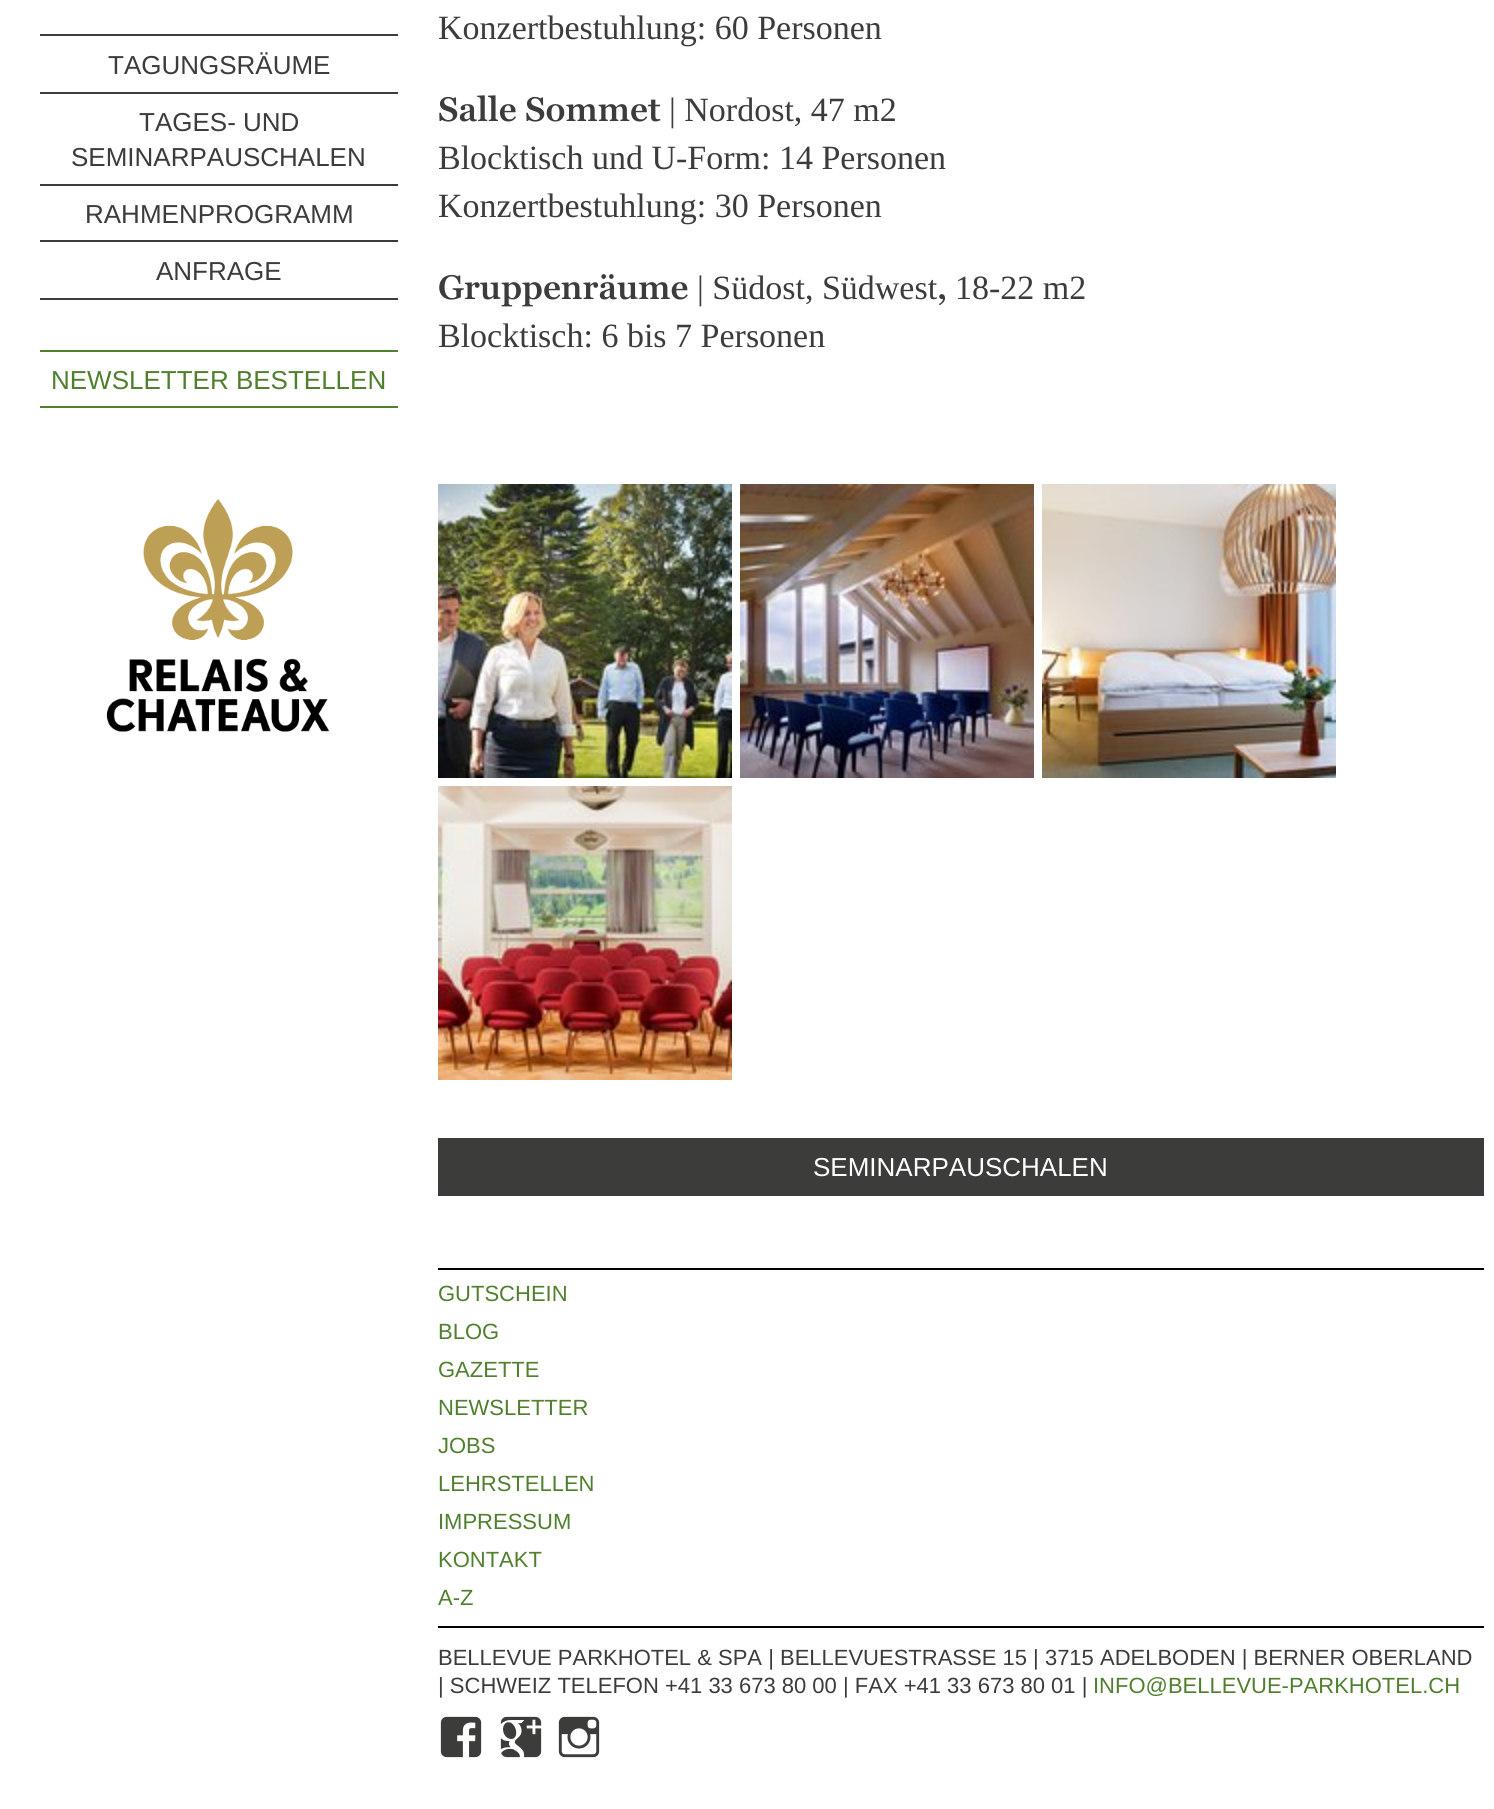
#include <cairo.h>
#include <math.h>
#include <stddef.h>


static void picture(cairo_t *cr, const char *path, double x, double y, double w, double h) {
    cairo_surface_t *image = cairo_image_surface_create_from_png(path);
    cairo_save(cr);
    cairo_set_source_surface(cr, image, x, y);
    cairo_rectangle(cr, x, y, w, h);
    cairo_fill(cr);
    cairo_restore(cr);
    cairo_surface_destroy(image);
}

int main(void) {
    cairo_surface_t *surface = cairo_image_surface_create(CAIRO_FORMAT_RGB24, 1494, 1809);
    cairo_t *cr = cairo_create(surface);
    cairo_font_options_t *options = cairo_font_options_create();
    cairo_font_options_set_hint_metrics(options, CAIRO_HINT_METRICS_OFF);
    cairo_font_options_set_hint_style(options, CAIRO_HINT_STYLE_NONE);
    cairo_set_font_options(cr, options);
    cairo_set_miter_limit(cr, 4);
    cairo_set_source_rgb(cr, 1, 1, 1);
    cairo_paint(cr);
    cairo_set_source_rgb(cr, 0.235, 0.235, 0.231);
    cairo_rectangle(cr, 40, 34, 358, 2);
    cairo_fill(cr);
    cairo_select_font_face(cr, "Liberation Sans", CAIRO_FONT_SLANT_NORMAL, CAIRO_FONT_WEIGHT_NORMAL);
    cairo_set_font_size(cr, 26);
    cairo_move_to(cr, 108, 74);
    cairo_show_text(cr, "TAGUNGSRÄUME");
    cairo_rectangle(cr, 40, 92, 358, 2);
    cairo_fill(cr);
    cairo_move_to(cr, 139, 131);
    cairo_show_text(cr, "TAGES- UND");
    cairo_move_to(cr, 71, 166);
    cairo_show_text(cr, "SEMINARPAUSCHALEN");
    cairo_rectangle(cr, 40, 184, 358, 2);
    cairo_fill(cr);
    cairo_move_to(cr, 85, 223);
    cairo_show_text(cr, "RAHMENPROGRAMM");
    cairo_rectangle(cr, 40, 298, 358, 2);
    cairo_fill(cr);
    cairo_rectangle(cr, 40, 240, 358, 2);
    cairo_fill(cr);
    cairo_move_to(cr, 156, 280);
    cairo_show_text(cr, "ANFRAGE");
    cairo_set_source_rgb(cr, 0.314, 0.502, 0.18);
    cairo_rectangle(cr, 40, 406, 358, 2);
    cairo_fill(cr);
    cairo_rectangle(cr, 40, 350, 358, 2);
    cairo_fill(cr);
    cairo_move_to(cr, 51, 389);
    cairo_show_text(cr, "NEWSLETTER BESTELLEN");
    picture(cr, "img1.png", 106, 499, 223, 233);
    cairo_select_font_face(cr, "Liberation Serif", CAIRO_FONT_SLANT_NORMAL, CAIRO_FONT_WEIGHT_NORMAL);
    cairo_set_font_size(cr, 34);
    cairo_set_source_rgb(cr, 0.235, 0.235, 0.231);
    cairo_move_to(cr, 438, 39);
    cairo_show_text(cr, "Konzertbestuhlung: 60 Personen");
    cairo_select_font_face(cr, "Georgia SemiBold", CAIRO_FONT_SLANT_NORMAL, CAIRO_FONT_WEIGHT_NORMAL);
    cairo_move_to(cr, 438, 121);
    cairo_show_text(cr, "Salle Sommet");
    cairo_select_font_face(cr, "Liberation Serif", CAIRO_FONT_SLANT_NORMAL, CAIRO_FONT_WEIGHT_NORMAL);
    cairo_move_to(cr, 669, 121);
    cairo_show_text(cr, "| Nordost, 47 m2");
    cairo_move_to(cr, 438, 169);
    cairo_show_text(cr, "Blocktisch und U-Form: 14 Personen");
    cairo_move_to(cr, 438, 217);
    cairo_show_text(cr, "Konzertbestuhlung: 30 Personen");
    cairo_select_font_face(cr, "Georgia SemiBold", CAIRO_FONT_SLANT_NORMAL, CAIRO_FONT_WEIGHT_NORMAL);
    cairo_move_to(cr, 438, 299);
    cairo_show_text(cr, "Gruppenräume");
    cairo_select_font_face(cr, "Liberation Serif", CAIRO_FONT_SLANT_NORMAL, CAIRO_FONT_WEIGHT_NORMAL);
    cairo_move_to(cr, 697, 299);
    cairo_show_text(cr, "| Südost, Südwest");
    cairo_select_font_face(cr, "Georgia SemiBold", CAIRO_FONT_SLANT_NORMAL, CAIRO_FONT_WEIGHT_NORMAL);
    cairo_move_to(cr, 937, 299);
    cairo_show_text(cr, ",");
    cairo_select_font_face(cr, "Liberation Serif", CAIRO_FONT_SLANT_NORMAL, CAIRO_FONT_WEIGHT_NORMAL);
    cairo_move_to(cr, 955, 299);
    cairo_show_text(cr, "18-22 m2");
    cairo_move_to(cr, 438, 347);
    cairo_show_text(cr, "Blocktisch: 6 bis 7 Personen");
    picture(cr, "img2.png", 438, 484, 294, 294);
    picture(cr, "img3.png", 740, 484, 294, 294);
    picture(cr, "img4.png", 1042, 484, 294, 294);
    picture(cr, "img5.png", 438, 786, 294, 294);
    cairo_rectangle(cr, 438, 1138, 1046, 58);
    cairo_fill(cr);
    cairo_select_font_face(cr, "Liberation Sans", CAIRO_FONT_SLANT_NORMAL, CAIRO_FONT_WEIGHT_NORMAL);
    cairo_set_font_size(cr, 26);
    cairo_set_source_rgb(cr, 1, 1, 1);
    cairo_move_to(cr, 813, 1176);
    cairo_show_text(cr, "SEMINARPAUSCHALEN");
    cairo_set_source_rgb(cr, 0, 0, 0);
    cairo_rectangle(cr, 438, 1268, 1046, 2);
    cairo_fill(cr);
    cairo_rectangle(cr, 438, 1626, 1046, 2);
    cairo_fill(cr);
    cairo_set_font_size(cr, 22);
    cairo_set_source_rgb(cr, 0.314, 0.502, 0.18);
    cairo_move_to(cr, 438, 1301);
    cairo_show_text(cr, "GUTSCHEIN");
    cairo_move_to(cr, 438, 1339);
    cairo_show_text(cr, "BLOG");
    cairo_move_to(cr, 438, 1377);
    cairo_show_text(cr, "GAZETTE");
    cairo_move_to(cr, 438, 1415);
    cairo_show_text(cr, "NEWSLETTER");
    cairo_move_to(cr, 438, 1453);
    cairo_show_text(cr, "JOBS");
    cairo_move_to(cr, 438, 1491);
    cairo_show_text(cr, "LEHRSTELLEN");
    cairo_move_to(cr, 438, 1529);
    cairo_show_text(cr, "IMPRESSUM");
    cairo_move_to(cr, 438, 1567);
    cairo_show_text(cr, "KONTAKT");
    cairo_move_to(cr, 438, 1605);
    cairo_show_text(cr, "A-Z");
    cairo_set_source_rgb(cr, 0.235, 0.235, 0.231);
    cairo_move_to(cr, 438, 1665);
    cairo_show_text(cr, "BELLEVUE PARKHOTEL & SPA | BELLEVUESTRASSE 15 | 3715 ADELBODEN | BERNER OBERLAND");
    cairo_move_to(cr, 438, 1693);
    cairo_show_text(cr, "| SCHWEIZ TELEFON +41 33 673 80 00 | FAX +41 33 673 80 01 |");
    cairo_set_source_rgb(cr, 0.314, 0.502, 0.18);
    cairo_move_to(cr, 1093, 1693);
    cairo_show_text(cr, "INFO@BELLEVUE-PARKHOTEL.CH");
    picture(cr, "img6.png", 440, 1716, 42, 42);
    picture(cr, "img7.png", 500, 1716, 42, 42);
    picture(cr, "img8.png", 558, 1716, 42, 42);
    cairo_surface_write_to_png(surface, "page.png");
    cairo_font_options_destroy(options);
    cairo_destroy(cr);
    cairo_surface_destroy(surface);
    return 0;
}
